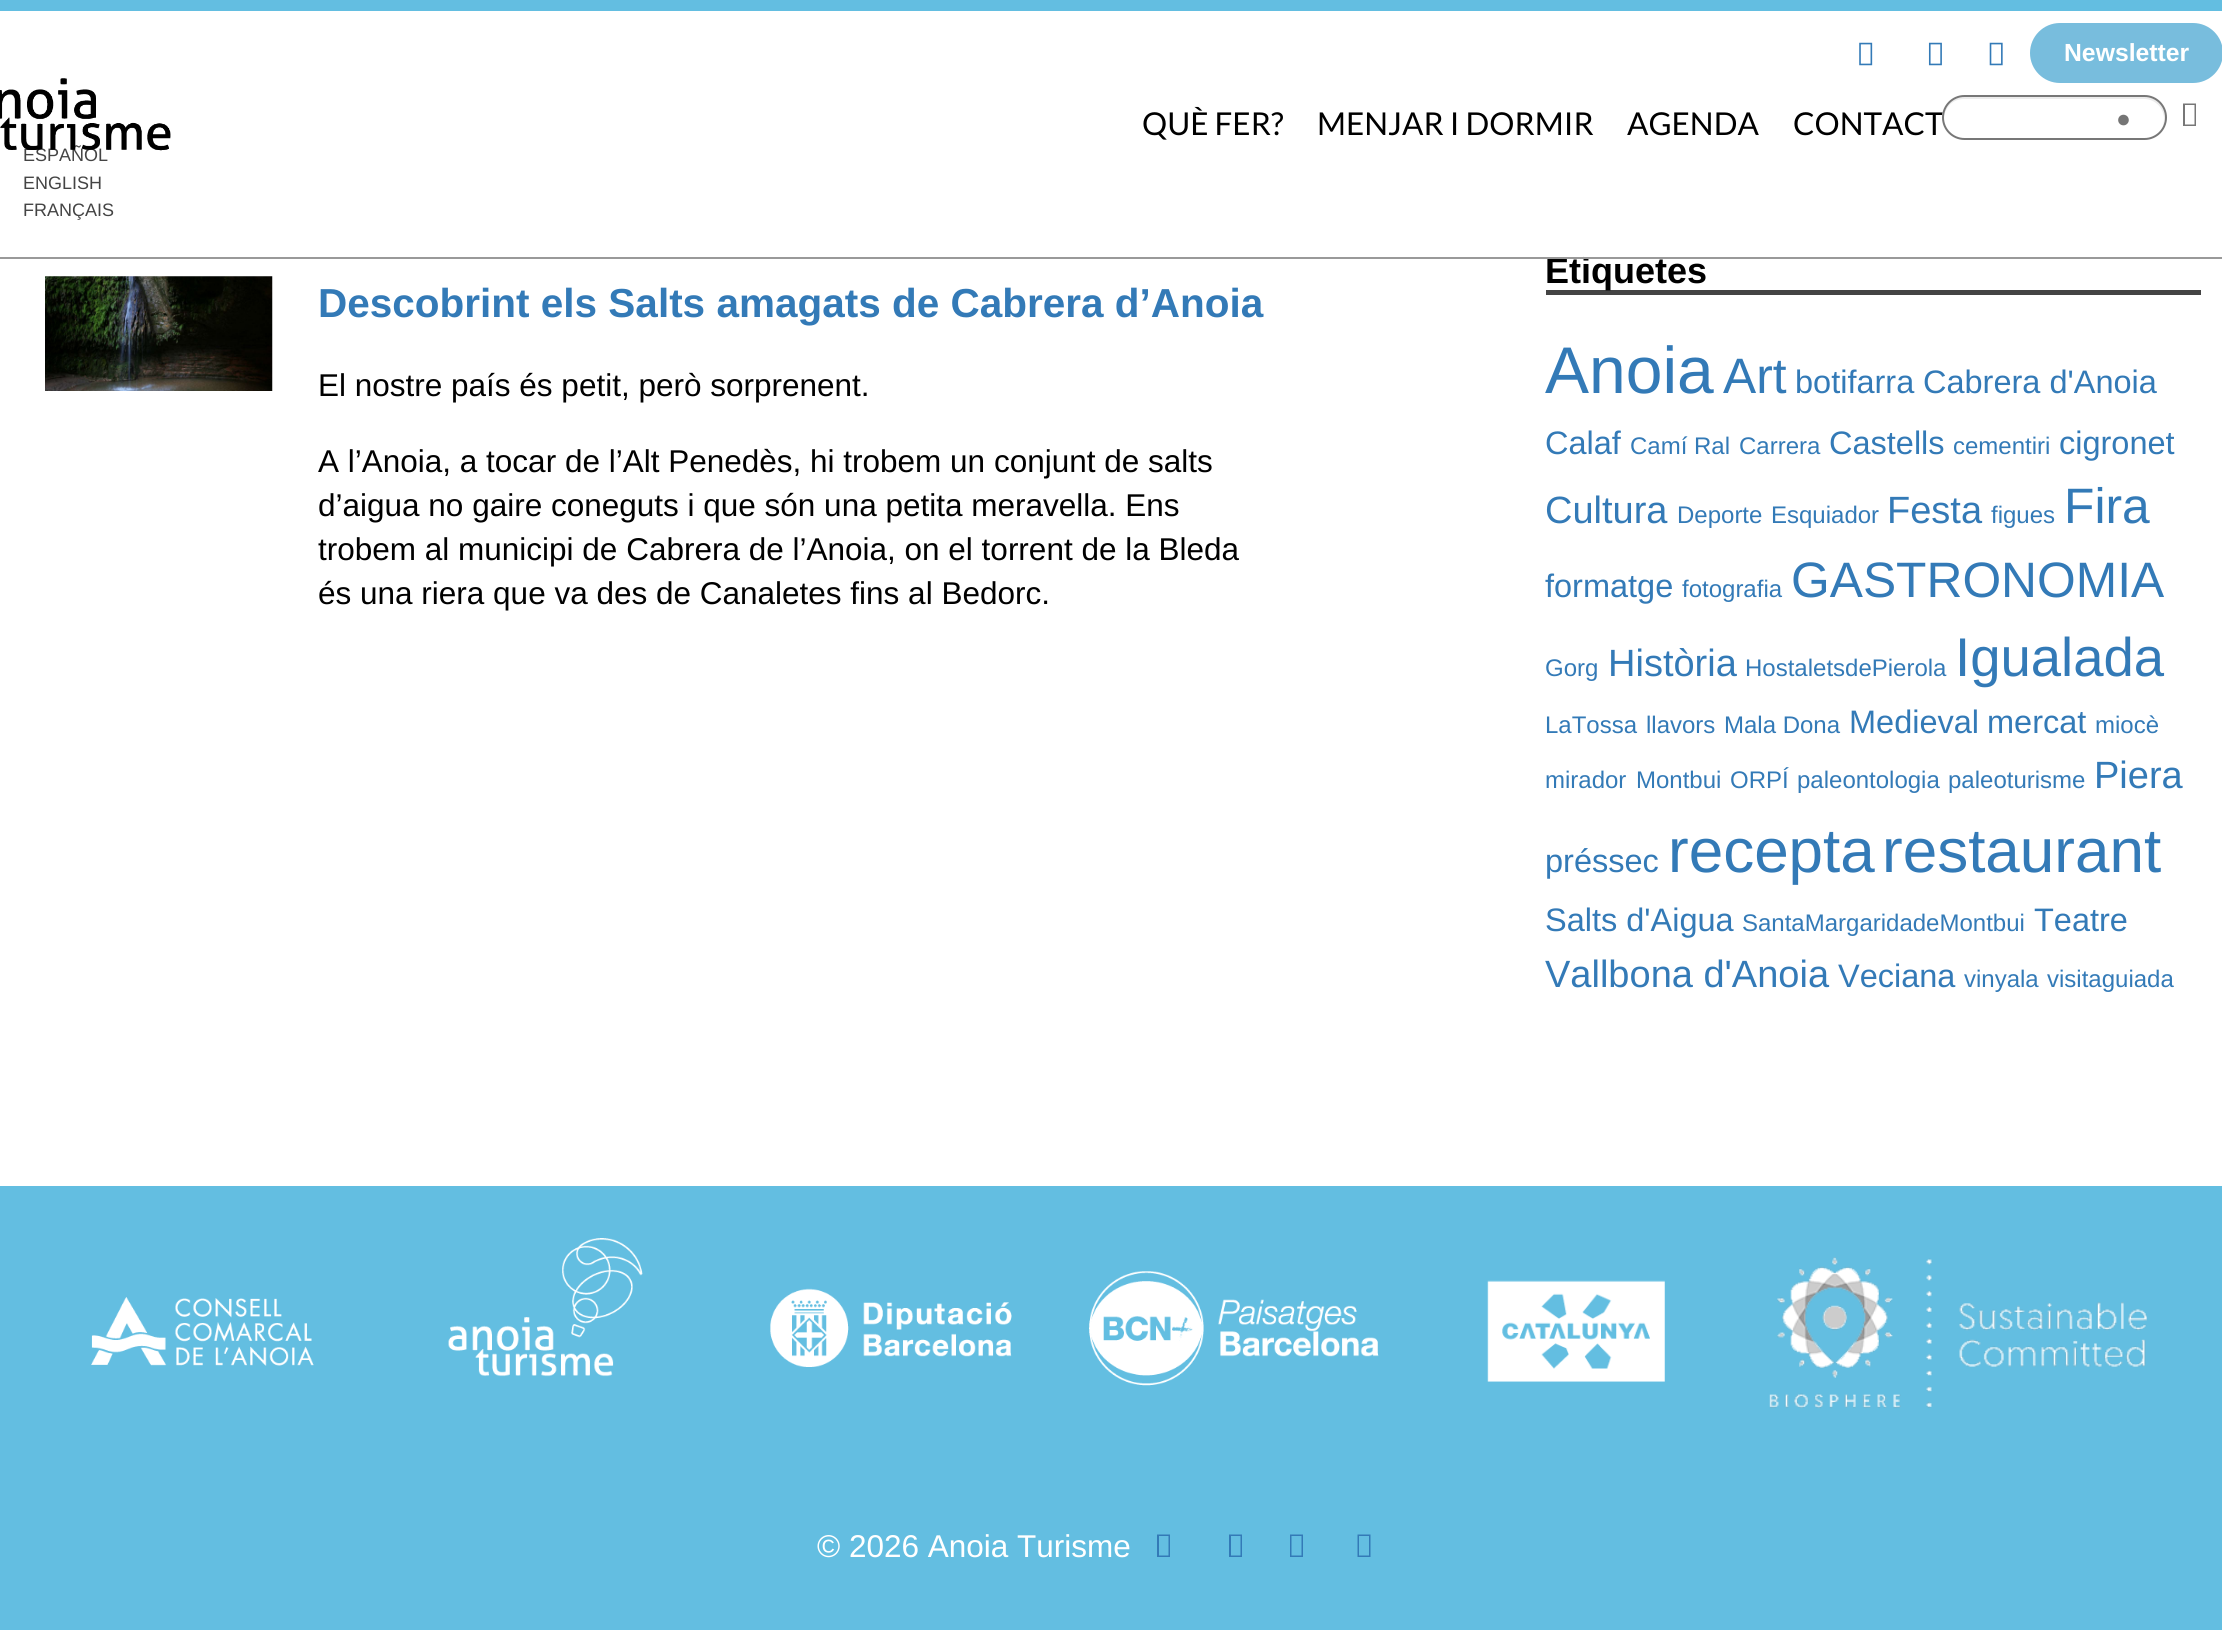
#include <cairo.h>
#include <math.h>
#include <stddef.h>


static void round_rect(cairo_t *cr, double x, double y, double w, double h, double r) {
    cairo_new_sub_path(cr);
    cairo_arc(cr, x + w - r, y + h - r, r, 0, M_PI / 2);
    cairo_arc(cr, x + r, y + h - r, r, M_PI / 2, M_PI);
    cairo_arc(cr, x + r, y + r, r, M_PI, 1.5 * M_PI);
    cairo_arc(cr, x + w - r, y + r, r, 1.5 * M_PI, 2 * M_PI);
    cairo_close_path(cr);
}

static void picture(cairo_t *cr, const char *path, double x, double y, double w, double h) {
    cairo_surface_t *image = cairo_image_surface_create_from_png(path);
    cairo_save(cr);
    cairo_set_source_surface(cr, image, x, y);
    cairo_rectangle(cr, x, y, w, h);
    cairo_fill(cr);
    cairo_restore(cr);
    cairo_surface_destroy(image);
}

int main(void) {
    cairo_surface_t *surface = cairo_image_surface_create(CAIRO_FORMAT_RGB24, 2222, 1630);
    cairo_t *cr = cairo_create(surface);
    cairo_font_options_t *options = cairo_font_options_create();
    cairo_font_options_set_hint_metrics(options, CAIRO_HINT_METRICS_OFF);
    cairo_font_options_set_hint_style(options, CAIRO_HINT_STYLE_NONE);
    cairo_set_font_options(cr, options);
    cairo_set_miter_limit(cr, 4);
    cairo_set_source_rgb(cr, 1, 1, 1);
    cairo_paint(cr);
    cairo_set_source_rgb(cr, 0.388, 0.745, 0.882);
    cairo_rectangle(cr, 0, 0, 2222, 11);
    cairo_fill(cr);
    cairo_set_source_rgb(cr, 0.267, 0.267, 0.267);
    cairo_rectangle(cr, 1546, 290, 655, 5);
    cairo_fill(cr);
    cairo_select_font_face(cr, "Liberation Sans", CAIRO_FONT_SLANT_NORMAL, CAIRO_FONT_WEIGHT_BOLD);
    cairo_set_font_size(cr, 36);
    cairo_set_source_rgb(cr, 0, 0, 0);
    cairo_move_to(cr, 1545, 283);
    cairo_show_text(cr, "Etiquetes");
    cairo_set_source_rgb(cr, 1, 1, 1);
    cairo_rectangle(cr, 1584, 256, 5, 1);
    cairo_fill(cr);
    cairo_set_source_rgb(cr, 0.6, 0.6, 0.6);
    cairo_rectangle(cr, 0, 257, 2222, 2);
    cairo_fill(cr);
    picture(cr, "img1.png", 1859, 42, 14, 24);
    picture(cr, "img2.png", 1928, 42, 14, 24);
    picture(cr, "img3.png", 1989, 42, 14, 24);
    cairo_set_source_rgb(cr, 0.471, 0.741, 0.867);
    round_rect(cr, 2030, 23, 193, 60, 30);
    cairo_fill(cr);
    cairo_set_font_size(cr, 24.75);
    cairo_set_source_rgb(cr, 1, 1, 1);
    cairo_move_to(cr, 2064, 61);
    cairo_show_text(cr, "Newsletter");
    cairo_select_font_face(cr, "Liberation Sans", CAIRO_FONT_SLANT_NORMAL, CAIRO_FONT_WEIGHT_NORMAL);
    cairo_set_font_size(cr, 18);
    cairo_set_source_rgb(cr, 0.267, 0.267, 0.267);
    cairo_move_to(cr, 23, 161);
    cairo_show_text(cr, "ESPAÑOL");
    picture(cr, "img4.png", 0, 78, 171, 73);
    cairo_select_font_face(cr, "Lato", CAIRO_FONT_SLANT_NORMAL, CAIRO_FONT_WEIGHT_NORMAL);
    cairo_set_font_size(cr, 31.5);
    cairo_set_source_rgb(cr, 0, 0, 0);
    cairo_move_to(cr, 1142, 135);
    cairo_show_text(cr, "QUÈ FER?");
    cairo_move_to(cr, 1317, 135);
    cairo_show_text(cr, "MENJAR I DORMIR");
    cairo_move_to(cr, 1627, 135);
    cairo_show_text(cr, "AGENDA");
    cairo_move_to(cr, 1793, 135);
    cairo_show_text(cr, "CONTACT");
    cairo_set_source_rgb(cr, 1, 1, 1);
    round_rect(cr, 1942, 95, 225, 45, 22.5);
    cairo_fill(cr);
    cairo_set_source_rgb(cr, 0.925, 0.925, 0.925);
    cairo_new_path(cr);
    cairo_move_to(cr, 1964, 99);
    cairo_line_to(cr, 2144, 99);
    cairo_curve_to(cr, 2155, 99, 2164, 108, 2164, 119);
    cairo_curve_to(cr, 2164, 122, 2163, 124, 2163, 127);
    cairo_curve_to(cr, 2164, 124, 2165, 120, 2165, 117);
    cairo_curve_to(cr, 2165, 106, 2156, 97, 2145, 97);
    cairo_line_to(cr, 1964, 97);
    cairo_curve_to(cr, 1953, 97, 1944, 106, 1944, 117);
    cairo_line_to(cr, 1944, 118);
    cairo_curve_to(cr, 1945, 107, 1953, 99, 1964, 99);
    cairo_close_path(cr);
    cairo_fill(cr);
    round_rect(cr, 1943, 96, 223, 43, 21.5);
    cairo_set_source_rgb(cr, 0.467, 0.467, 0.467);
    cairo_stroke(cr);
    cairo_select_font_face(cr, "Liberation Sans", CAIRO_FONT_SLANT_NORMAL, CAIRO_FONT_WEIGHT_NORMAL);
    cairo_set_font_size(cr, 24.75);
    cairo_set_source_rgb(cr, 0.459, 0.459, 0.459);
    cairo_move_to(cr, 2116, 127);
    cairo_show_text(cr, "●");
    cairo_set_source_rgb(cr, 0.467, 0.467, 0.467);
    cairo_new_path(cr);
    cairo_move_to(cr, 2183, 126);
    cairo_line_to(cr, 2183, 103.5);
    cairo_line_to(cr, 2196, 103.5);
    cairo_line_to(cr, 2196, 126);
    cairo_close_path(cr);
    cairo_move_to(cr, 2185, 124.5);
    cairo_line_to(cr, 2194.5, 124.5);
    cairo_line_to(cr, 2194.5, 105);
    cairo_line_to(cr, 2185, 105);
    cairo_close_path(cr);
    cairo_fill(cr);
    cairo_set_font_size(cr, 18);
    cairo_set_source_rgb(cr, 0.267, 0.267, 0.267);
    cairo_move_to(cr, 23, 189);
    cairo_show_text(cr, "ENGLISH");
    cairo_move_to(cr, 23, 216);
    cairo_show_text(cr, "FRANÇAIS");
    picture(cr, "img5.png", 45, 276, 228, 115);
    cairo_select_font_face(cr, "Liberation Sans", CAIRO_FONT_SLANT_NORMAL, CAIRO_FONT_WEIGHT_BOLD);
    cairo_set_font_size(cr, 40.5);
    cairo_set_source_rgb(cr, 0.2, 0.478, 0.718);
    cairo_move_to(cr, 318, 317);
    cairo_show_text(cr, "Descobrint els Salts amagats de Cabrera d’Anoia");
    cairo_select_font_face(cr, "Liberation Sans", CAIRO_FONT_SLANT_NORMAL, CAIRO_FONT_WEIGHT_NORMAL);
    cairo_set_font_size(cr, 31.5);
    cairo_set_source_rgb(cr, 0, 0, 0);
    cairo_move_to(cr, 318, 396);
    cairo_show_text(cr, "El nostre país és petit, però sorprenent.");
    cairo_move_to(cr, 318, 472);
    cairo_show_text(cr, "A l’Anoia, a tocar de l’Alt Penedès, hi trobem un conjunt de salts");
    cairo_move_to(cr, 318, 516);
    cairo_show_text(cr, "d’aigua no gaire coneguts i que són una petita meravella. Ens");
    cairo_move_to(cr, 318, 560);
    cairo_show_text(cr, "trobem al municipi de Cabrera de l’Anoia, on el torrent de la Bleda");
    cairo_move_to(cr, 318, 604);
    cairo_show_text(cr, "és una riera que va des de Canaletes fins al Bedorc.");
    cairo_set_font_size(cr, 66);
    cairo_set_source_rgb(cr, 0.2, 0.478, 0.718);
    cairo_move_to(cr, 1545, 393);
    cairo_show_text(cr, "Anoia");
    cairo_set_font_size(cr, 49.75);
    cairo_move_to(cr, 1723, 393);
    cairo_show_text(cr, "Art");
    cairo_set_font_size(cr, 32.5);
    cairo_move_to(cr, 1795, 393);
    cairo_show_text(cr, "botifarra");
    cairo_move_to(cr, 1923, 393);
    cairo_show_text(cr, "Cabrera d'Anoia");
    cairo_move_to(cr, 1545, 454);
    cairo_show_text(cr, "Calaf");
    cairo_set_font_size(cr, 24);
    cairo_move_to(cr, 1630, 454);
    cairo_show_text(cr, "Camí Ral");
    cairo_move_to(cr, 1739, 454);
    cairo_show_text(cr, "Carrera");
    cairo_set_font_size(cr, 32.5);
    cairo_move_to(cr, 1829, 454);
    cairo_show_text(cr, "Castells");
    cairo_set_font_size(cr, 24);
    cairo_move_to(cr, 1953, 454);
    cairo_show_text(cr, "cementiri");
    cairo_set_font_size(cr, 32.5);
    cairo_move_to(cr, 2059, 454);
    cairo_show_text(cr, "cigronet");
    cairo_set_font_size(cr, 38);
    cairo_move_to(cr, 1545, 523);
    cairo_show_text(cr, "Cultura");
    cairo_set_font_size(cr, 24);
    cairo_move_to(cr, 1677, 523);
    cairo_show_text(cr, "Deporte");
    cairo_move_to(cr, 1771, 523);
    cairo_show_text(cr, "Esquiador");
    cairo_set_font_size(cr, 38);
    cairo_move_to(cr, 1887, 523);
    cairo_show_text(cr, "Festa");
    cairo_set_font_size(cr, 24);
    cairo_move_to(cr, 1991, 523);
    cairo_show_text(cr, "figues");
    cairo_set_font_size(cr, 49.75);
    cairo_move_to(cr, 2064, 523);
    cairo_show_text(cr, "Fira");
    cairo_set_font_size(cr, 32.5);
    cairo_move_to(cr, 1545, 597);
    cairo_show_text(cr, "formatge");
    cairo_set_font_size(cr, 24);
    cairo_move_to(cr, 1682, 597);
    cairo_show_text(cr, "fotografia");
    cairo_set_font_size(cr, 49.75);
    cairo_move_to(cr, 1791, 597);
    cairo_show_text(cr, "GASTRONOMIA");
    cairo_set_font_size(cr, 24);
    cairo_move_to(cr, 1545, 676);
    cairo_show_text(cr, "Gorg");
    cairo_set_font_size(cr, 38);
    cairo_move_to(cr, 1608, 676);
    cairo_show_text(cr, "Història");
    cairo_set_font_size(cr, 24);
    cairo_move_to(cr, 1745, 676);
    cairo_show_text(cr, "HostaletsdePierola");
    cairo_set_font_size(cr, 54.5);
    cairo_move_to(cr, 1955, 676);
    cairo_show_text(cr, "Igualada");
    cairo_set_font_size(cr, 24);
    cairo_move_to(cr, 1545, 733);
    cairo_show_text(cr, "LaTossa");
    cairo_move_to(cr, 1646, 733);
    cairo_show_text(cr, "llavors");
    cairo_move_to(cr, 1724, 733);
    cairo_show_text(cr, "Mala Dona");
    cairo_set_font_size(cr, 32.5);
    cairo_move_to(cr, 1849, 733);
    cairo_show_text(cr, "Medieval");
    cairo_move_to(cr, 1987, 733);
    cairo_show_text(cr, "mercat");
    cairo_set_font_size(cr, 24);
    cairo_move_to(cr, 2095, 733);
    cairo_show_text(cr, "miocè");
    cairo_move_to(cr, 1545, 788);
    cairo_show_text(cr, "mirador");
    cairo_move_to(cr, 1636, 788);
    cairo_show_text(cr, "Montbui");
    cairo_move_to(cr, 1730, 788);
    cairo_show_text(cr, "ORPÍ");
    cairo_move_to(cr, 1797, 788);
    cairo_show_text(cr, "paleontologia");
    cairo_move_to(cr, 1948, 788);
    cairo_show_text(cr, "paleoturisme");
    cairo_set_font_size(cr, 38);
    cairo_move_to(cr, 2094, 788);
    cairo_show_text(cr, "Piera");
    cairo_set_font_size(cr, 32.5);
    cairo_move_to(cr, 1545, 872);
    cairo_show_text(cr, "préssec");
    cairo_set_font_size(cr, 62);
    cairo_move_to(cr, 1668, 872);
    cairo_show_text(cr, "recepta");
    cairo_move_to(cr, 1882, 872);
    cairo_show_text(cr, "restaurant");
    cairo_set_font_size(cr, 32.5);
    cairo_move_to(cr, 1545, 931);
    cairo_show_text(cr, "Salts d'Aigua");
    cairo_set_font_size(cr, 24);
    cairo_move_to(cr, 1742, 931);
    cairo_show_text(cr, "SantaMargaridadeMontbui");
    cairo_set_font_size(cr, 32.5);
    cairo_move_to(cr, 2034, 931);
    cairo_show_text(cr, "Teatre");
    cairo_set_font_size(cr, 38);
    cairo_move_to(cr, 1545, 987);
    cairo_show_text(cr, "Vallbona d'Anoia");
    cairo_set_font_size(cr, 32.5);
    cairo_move_to(cr, 1838, 987);
    cairo_show_text(cr, "Veciana");
    cairo_set_font_size(cr, 24);
    cairo_move_to(cr, 1964, 987);
    cairo_show_text(cr, "vinyala");
    cairo_move_to(cr, 2047, 987);
    cairo_show_text(cr, "visitaguiada");
    cairo_set_source_rgb(cr, 0.388, 0.745, 0.882);
    cairo_rectangle(cr, 0, 1186, 2222, 444);
    cairo_fill(cr);
    picture(cr, "img6.png", 91, 1297, 223, 69);
    picture(cr, "img7.png", 448, 1238, 195, 139);
    picture(cr, "img8.png", 770, 1288, 242, 79);
    picture(cr, "img9.png", 1089, 1271, 290, 115);
    picture(cr, "img10.png", 1487, 1280, 178, 102);
    picture(cr, "img11.png", 1769, 1257, 378, 152);
    cairo_set_font_size(cr, 31.5);
    cairo_set_source_rgb(cr, 1, 1, 1);
    cairo_move_to(cr, 817, 1557);
    cairo_show_text(cr, "© 2026 Anoia Turisme");
    cairo_set_source_rgb(cr, 0.2, 0.478, 0.718);
    cairo_new_path(cr);
    cairo_move_to(cr, 1157, 1557);
    cairo_line_to(cr, 1157, 1534.5);
    cairo_line_to(cr, 1170, 1534.5);
    cairo_line_to(cr, 1170, 1557);
    cairo_close_path(cr);
    cairo_move_to(cr, 1159, 1555.5);
    cairo_line_to(cr, 1168.5, 1555.5);
    cairo_line_to(cr, 1168.5, 1536);
    cairo_line_to(cr, 1159, 1536);
    cairo_close_path(cr);
    cairo_fill(cr);
    cairo_new_path(cr);
    cairo_move_to(cr, 1229, 1557);
    cairo_line_to(cr, 1229, 1534.5);
    cairo_line_to(cr, 1242, 1534.5);
    cairo_line_to(cr, 1242, 1557);
    cairo_close_path(cr);
    cairo_move_to(cr, 1231, 1555.5);
    cairo_line_to(cr, 1240.5, 1555.5);
    cairo_line_to(cr, 1240.5, 1536);
    cairo_line_to(cr, 1231, 1536);
    cairo_close_path(cr);
    cairo_fill(cr);
    cairo_new_path(cr);
    cairo_move_to(cr, 1290, 1557);
    cairo_line_to(cr, 1290, 1534.5);
    cairo_line_to(cr, 1303, 1534.5);
    cairo_line_to(cr, 1303, 1557);
    cairo_close_path(cr);
    cairo_move_to(cr, 1291.5, 1555.5);
    cairo_line_to(cr, 1301.5, 1555.5);
    cairo_line_to(cr, 1301.5, 1536);
    cairo_line_to(cr, 1291.5, 1536);
    cairo_close_path(cr);
    cairo_fill(cr);
    cairo_new_path(cr);
    cairo_move_to(cr, 1357.5, 1557);
    cairo_line_to(cr, 1357.5, 1534.5);
    cairo_line_to(cr, 1370.5, 1534.5);
    cairo_line_to(cr, 1370.5, 1557);
    cairo_close_path(cr);
    cairo_move_to(cr, 1359, 1555.5);
    cairo_line_to(cr, 1369, 1555.5);
    cairo_line_to(cr, 1369, 1536);
    cairo_line_to(cr, 1359, 1536);
    cairo_close_path(cr);
    cairo_fill(cr);
    cairo_surface_write_to_png(surface, "page.png");
    cairo_font_options_destroy(options);
    cairo_destroy(cr);
    cairo_surface_destroy(surface);
    return 0;
}
